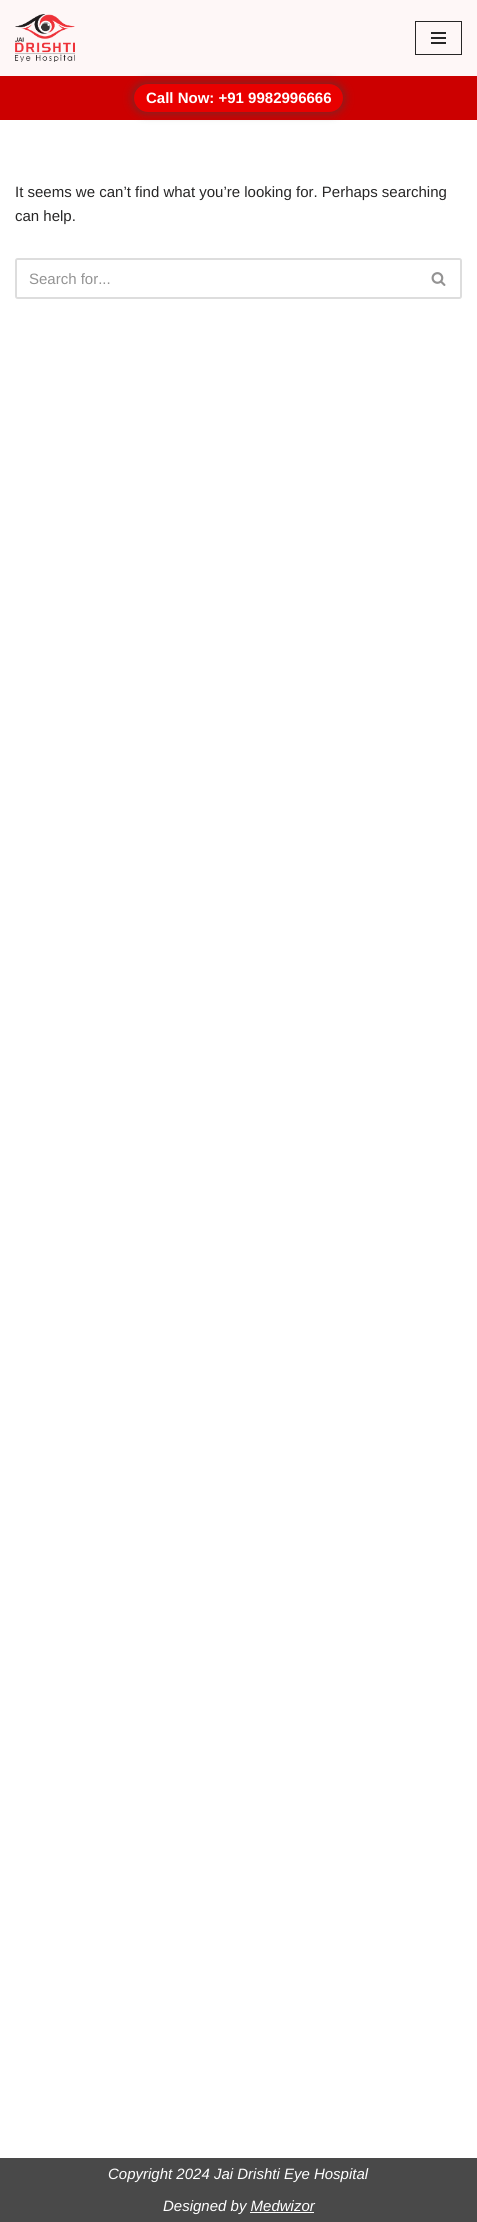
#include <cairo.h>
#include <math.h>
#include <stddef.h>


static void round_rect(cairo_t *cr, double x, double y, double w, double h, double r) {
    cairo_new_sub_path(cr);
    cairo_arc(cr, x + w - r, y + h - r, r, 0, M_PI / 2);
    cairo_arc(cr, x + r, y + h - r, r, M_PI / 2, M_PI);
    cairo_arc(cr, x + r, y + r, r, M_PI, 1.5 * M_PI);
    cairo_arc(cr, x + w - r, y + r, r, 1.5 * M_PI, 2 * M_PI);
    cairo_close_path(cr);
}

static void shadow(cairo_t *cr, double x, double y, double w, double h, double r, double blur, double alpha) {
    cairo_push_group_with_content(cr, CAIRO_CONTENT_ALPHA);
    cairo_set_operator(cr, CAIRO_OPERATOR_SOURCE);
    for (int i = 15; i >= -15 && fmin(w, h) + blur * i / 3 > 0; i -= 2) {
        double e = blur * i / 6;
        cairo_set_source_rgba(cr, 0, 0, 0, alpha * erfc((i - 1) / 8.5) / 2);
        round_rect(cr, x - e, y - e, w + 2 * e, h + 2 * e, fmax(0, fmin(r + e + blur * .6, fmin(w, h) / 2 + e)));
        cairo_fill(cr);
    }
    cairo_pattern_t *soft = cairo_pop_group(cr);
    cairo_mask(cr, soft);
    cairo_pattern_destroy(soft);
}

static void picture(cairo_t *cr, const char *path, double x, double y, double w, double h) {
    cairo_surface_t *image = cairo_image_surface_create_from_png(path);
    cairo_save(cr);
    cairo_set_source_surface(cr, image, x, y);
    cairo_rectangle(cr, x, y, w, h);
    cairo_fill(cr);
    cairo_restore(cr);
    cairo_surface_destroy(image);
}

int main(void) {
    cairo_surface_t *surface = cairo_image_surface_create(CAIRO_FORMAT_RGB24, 477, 2222);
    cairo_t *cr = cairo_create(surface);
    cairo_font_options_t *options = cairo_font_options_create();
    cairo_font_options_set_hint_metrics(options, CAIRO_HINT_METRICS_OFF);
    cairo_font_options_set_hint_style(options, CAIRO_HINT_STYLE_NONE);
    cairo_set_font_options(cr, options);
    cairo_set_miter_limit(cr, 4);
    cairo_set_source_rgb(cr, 1, 1, 1);
    cairo_paint(cr);
    cairo_set_source_rgb(cr, 0.996, 0.965, 0.965);
    cairo_rectangle(cr, 0, 0, 477, 76);
    cairo_fill(cr);
    picture(cr, "img1.png", 15, 14, 60, 48);
    cairo_rectangle(cr, 415.5, 21.5, 46, 33);
    cairo_set_source_rgb(cr, 0.153, 0.149, 0.149);
    cairo_set_line_width(cr, 1);
    cairo_stroke(cr);
    cairo_rectangle(cr, 431, 32, 15, 2);
    cairo_fill(cr);
    cairo_rectangle(cr, 431, 37, 15, 2);
    cairo_fill(cr);
    cairo_rectangle(cr, 431, 42, 15, 2);
    cairo_fill(cr);
    cairo_set_source_rgb(cr, 0.8, 0, 0);
    cairo_rectangle(cr, 0, 76, 477, 44);
    cairo_fill(cr);
    cairo_set_source_rgb(cr, 0.251, 0.251, 0.251);
    shadow(cr, 134, 84, 209, 28, 14, 5, 0.75);
    cairo_set_source_rgb(cr, 0.914, 0, 0);
    round_rect(cr, 134, 84, 209, 28, 14);
    cairo_fill(cr);
    cairo_select_font_face(cr, "Liberation Sans", CAIRO_FONT_SLANT_NORMAL, CAIRO_FONT_WEIGHT_BOLD);
    cairo_set_font_size(cr, 15);
    cairo_set_source_rgb(cr, 1, 1, 1);
    cairo_move_to(cr, 146, 103);
    cairo_show_text(cr, "Call Now: +91 9982996666");
    cairo_select_font_face(cr, "Liberation Sans", CAIRO_FONT_SLANT_NORMAL, CAIRO_FONT_WEIGHT_NORMAL);
    cairo_set_source_rgb(cr, 0.153, 0.149, 0.149);
    cairo_move_to(cr, 15, 197);
    cairo_show_text(cr, "It seems we can’t find what you’re looking for. Perhaps searching");
    cairo_move_to(cr, 15, 221);
    cairo_show_text(cr, "can help.");
    cairo_set_source_rgb(cr, 0.867, 0.867, 0.867);
    cairo_set_fill_rule(cr, CAIRO_FILL_RULE_EVEN_ODD);
    cairo_new_path(cr);
    cairo_move_to(cr, 18, 258);
    cairo_line_to(cr, 417, 258);
    cairo_line_to(cr, 417, 299);
    cairo_line_to(cr, 18, 299);
    cairo_curve_to(cr, 16, 299, 15, 298, 15, 296);
    cairo_line_to(cr, 15, 261);
    cairo_curve_to(cr, 15, 259, 16, 258, 18, 258);
    cairo_close_path(cr);
    cairo_move_to(cr, 18, 260);
    cairo_line_to(cr, 417, 260);
    cairo_line_to(cr, 417, 297);
    cairo_line_to(cr, 18, 297);
    cairo_curve_to(cr, 17, 297, 17, 297, 17, 296);
    cairo_line_to(cr, 17, 261);
    cairo_curve_to(cr, 17, 260, 17, 260, 18, 260);
    cairo_close_path(cr);
    cairo_fill(cr);
    cairo_set_source_rgb(cr, 0.576, 0.576, 0.576);
    cairo_move_to(cr, 29, 284);
    cairo_show_text(cr, "Search for...");
    cairo_set_source_rgb(cr, 0.867, 0.867, 0.867);
    cairo_new_path(cr);
    cairo_move_to(cr, 417, 258);
    cairo_line_to(cr, 459, 258);
    cairo_curve_to(cr, 461, 258, 462, 259, 462, 261);
    cairo_line_to(cr, 462, 296);
    cairo_curve_to(cr, 462, 298, 461, 299, 459, 299);
    cairo_line_to(cr, 417, 299);
    cairo_close_path(cr);
    cairo_move_to(cr, 417, 260);
    cairo_line_to(cr, 459, 260);
    cairo_curve_to(cr, 460, 260, 460, 260, 460, 261);
    cairo_line_to(cr, 460, 296);
    cairo_curve_to(cr, 460, 297, 460, 297, 459, 297);
    cairo_line_to(cr, 417, 297);
    cairo_close_path(cr);
    cairo_fill(cr);
    picture(cr, "img2.png", 431, 272, 15, 14);
    cairo_set_source_rgb(cr, 0.286, 0.286, 0.286);
    cairo_rectangle(cr, 0, 2158, 477, 64);
    cairo_fill(cr);
    cairo_select_font_face(cr, "Liberation Sans", CAIRO_FONT_SLANT_ITALIC, CAIRO_FONT_WEIGHT_NORMAL);
    cairo_set_source_rgb(cr, 1, 1, 1);
    cairo_move_to(cr, 108, 2179);
    cairo_show_text(cr, "Copyright 2024 Jai Drishti Eye Hospital");
    cairo_move_to(cr, 163, 2211);
    cairo_show_text(cr, "Designed by Medwizor");
    cairo_rectangle(cr, 250, 2212, 64, 1);
    cairo_fill(cr);
    cairo_surface_write_to_png(surface, "page.png");
    cairo_font_options_destroy(options);
    cairo_destroy(cr);
    cairo_surface_destroy(surface);
    return 0;
}
